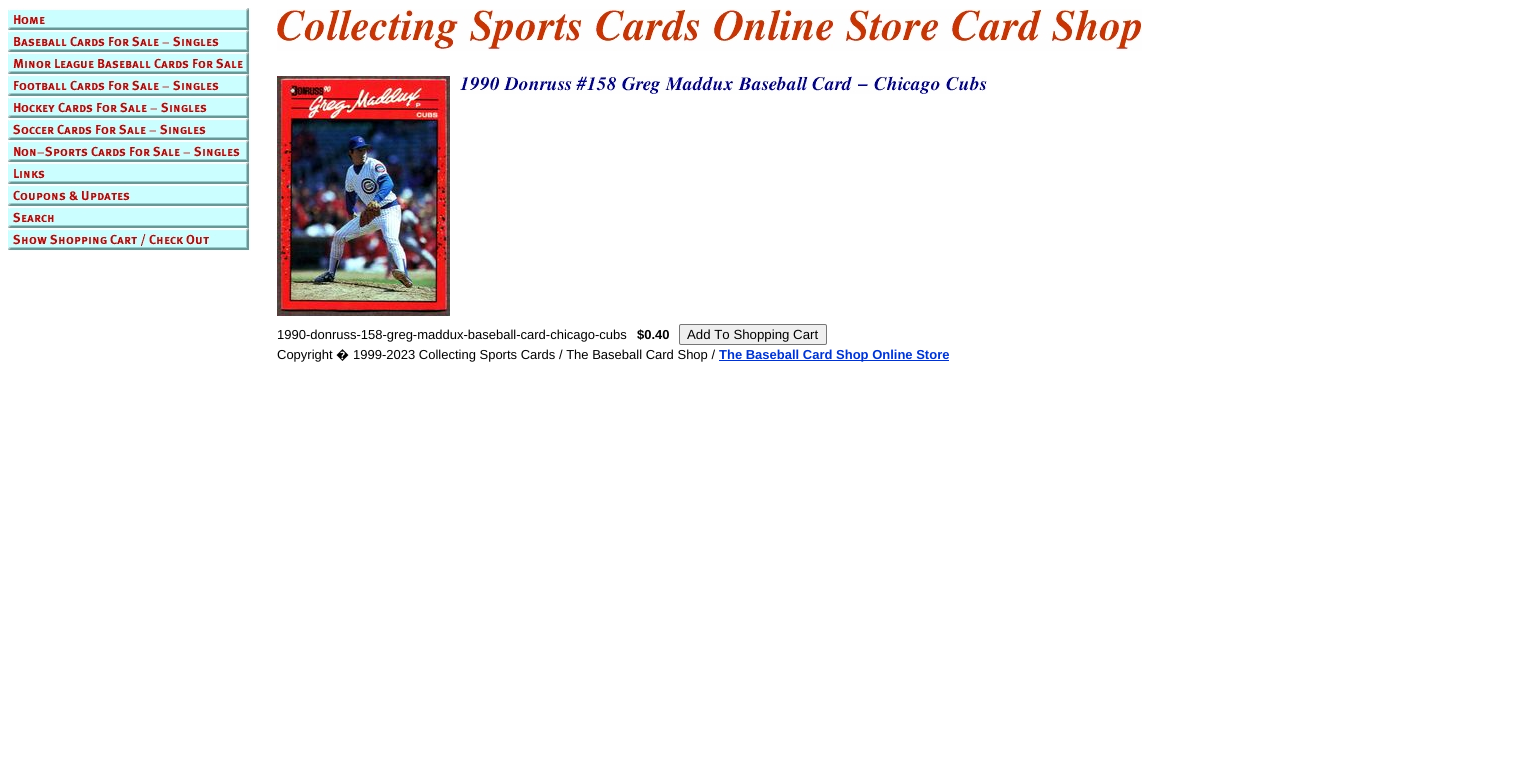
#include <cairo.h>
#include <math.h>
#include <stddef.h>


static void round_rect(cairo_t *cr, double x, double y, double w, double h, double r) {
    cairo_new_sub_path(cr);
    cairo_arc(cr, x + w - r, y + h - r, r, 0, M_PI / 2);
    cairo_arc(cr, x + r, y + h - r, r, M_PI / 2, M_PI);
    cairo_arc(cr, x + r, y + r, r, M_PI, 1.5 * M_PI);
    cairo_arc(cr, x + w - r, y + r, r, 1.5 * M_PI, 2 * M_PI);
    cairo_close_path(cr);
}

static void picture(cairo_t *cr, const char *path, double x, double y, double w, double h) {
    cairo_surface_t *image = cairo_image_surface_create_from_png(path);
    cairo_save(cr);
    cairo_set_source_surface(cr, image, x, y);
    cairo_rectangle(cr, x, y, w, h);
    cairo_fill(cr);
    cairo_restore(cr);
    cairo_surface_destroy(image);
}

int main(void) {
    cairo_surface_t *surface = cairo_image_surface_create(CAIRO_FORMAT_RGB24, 1528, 776);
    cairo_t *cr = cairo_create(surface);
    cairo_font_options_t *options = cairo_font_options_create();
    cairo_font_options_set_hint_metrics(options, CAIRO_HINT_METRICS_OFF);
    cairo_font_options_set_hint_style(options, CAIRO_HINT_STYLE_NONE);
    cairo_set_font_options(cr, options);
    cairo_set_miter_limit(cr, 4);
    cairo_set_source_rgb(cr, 1, 1, 1);
    cairo_paint(cr);
    picture(cr, "img1.png", 8, 8, 243, 243);
    picture(cr, "img2.png", 277, 9, 865, 42);
    picture(cr, "img3.png", 277, 76, 173, 240);
    picture(cr, "img4.png", 460, 76, 527, 18);
    cairo_select_font_face(cr, "Liberation Sans", CAIRO_FONT_SLANT_NORMAL, CAIRO_FONT_WEIGHT_NORMAL);
    cairo_set_font_size(cr, 13);
    cairo_set_source_rgb(cr, 0, 0, 0);
    cairo_move_to(cr, 277, 339);
    cairo_show_text(cr, "1990-donruss-158-greg-maddux-baseball-card-chicago-cubs");
    cairo_select_font_face(cr, "Liberation Sans", CAIRO_FONT_SLANT_NORMAL, CAIRO_FONT_WEIGHT_BOLD);
    cairo_move_to(cr, 637, 339);
    cairo_show_text(cr, "$0.40");
    cairo_set_source_rgb(cr, 0.937, 0.937, 0.937);
    round_rect(cr, 679.5, 324.5, 147, 20, 1.5);
    cairo_fill_preserve(cr);
    cairo_set_source_rgb(cr, 0.463, 0.463, 0.463);
    cairo_set_line_width(cr, 1);
    cairo_stroke(cr);
    cairo_select_font_face(cr, "Liberation Sans", CAIRO_FONT_SLANT_NORMAL, CAIRO_FONT_WEIGHT_NORMAL);
    cairo_set_font_size(cr, 13.25);
    cairo_set_source_rgb(cr, 0, 0, 0);
    cairo_move_to(cr, 687, 339);
    cairo_show_text(cr, "Add To Shopping Cart");
    cairo_set_font_size(cr, 13);
    cairo_move_to(cr, 277, 359);
    cairo_show_text(cr, "Copyright");
    cairo_select_font_face(cr, "Noto Sans", CAIRO_FONT_SLANT_NORMAL, CAIRO_FONT_WEIGHT_NORMAL);
    cairo_move_to(cr, 336, 359);
    cairo_show_text(cr, "�");
    cairo_select_font_face(cr, "Liberation Sans", CAIRO_FONT_SLANT_NORMAL, CAIRO_FONT_WEIGHT_NORMAL);
    cairo_move_to(cr, 353, 359);
    cairo_show_text(cr, "1999-2023 Collecting Sports Cards / The Baseball Card Shop /");
    cairo_set_source_rgb(cr, 0, 0.2, 0.8);
    cairo_rectangle(cr, 719, 360, 230, 1);
    cairo_fill(cr);
    cairo_select_font_face(cr, "Liberation Sans", CAIRO_FONT_SLANT_NORMAL, CAIRO_FONT_WEIGHT_BOLD);
    cairo_move_to(cr, 719, 359);
    cairo_show_text(cr, "The Baseball Card Shop Online Store");
    cairo_surface_write_to_png(surface, "page.png");
    cairo_font_options_destroy(options);
    cairo_destroy(cr);
    cairo_surface_destroy(surface);
    return 0;
}
